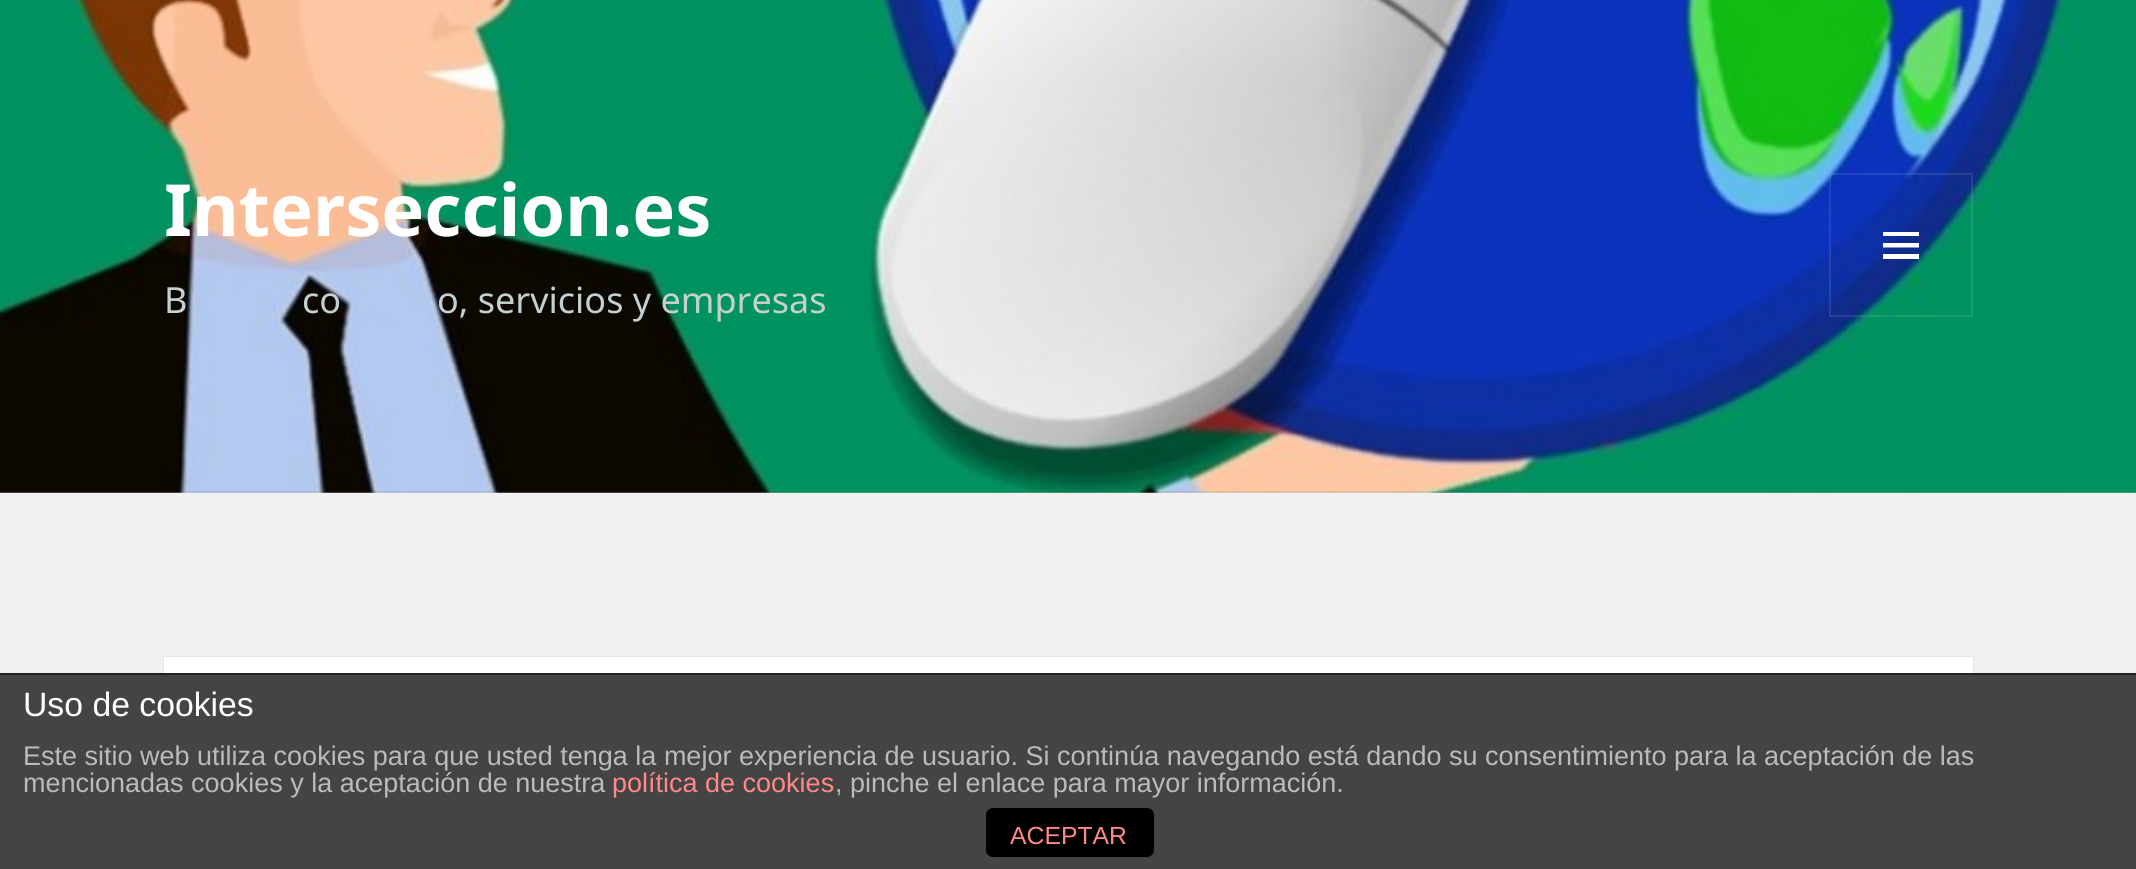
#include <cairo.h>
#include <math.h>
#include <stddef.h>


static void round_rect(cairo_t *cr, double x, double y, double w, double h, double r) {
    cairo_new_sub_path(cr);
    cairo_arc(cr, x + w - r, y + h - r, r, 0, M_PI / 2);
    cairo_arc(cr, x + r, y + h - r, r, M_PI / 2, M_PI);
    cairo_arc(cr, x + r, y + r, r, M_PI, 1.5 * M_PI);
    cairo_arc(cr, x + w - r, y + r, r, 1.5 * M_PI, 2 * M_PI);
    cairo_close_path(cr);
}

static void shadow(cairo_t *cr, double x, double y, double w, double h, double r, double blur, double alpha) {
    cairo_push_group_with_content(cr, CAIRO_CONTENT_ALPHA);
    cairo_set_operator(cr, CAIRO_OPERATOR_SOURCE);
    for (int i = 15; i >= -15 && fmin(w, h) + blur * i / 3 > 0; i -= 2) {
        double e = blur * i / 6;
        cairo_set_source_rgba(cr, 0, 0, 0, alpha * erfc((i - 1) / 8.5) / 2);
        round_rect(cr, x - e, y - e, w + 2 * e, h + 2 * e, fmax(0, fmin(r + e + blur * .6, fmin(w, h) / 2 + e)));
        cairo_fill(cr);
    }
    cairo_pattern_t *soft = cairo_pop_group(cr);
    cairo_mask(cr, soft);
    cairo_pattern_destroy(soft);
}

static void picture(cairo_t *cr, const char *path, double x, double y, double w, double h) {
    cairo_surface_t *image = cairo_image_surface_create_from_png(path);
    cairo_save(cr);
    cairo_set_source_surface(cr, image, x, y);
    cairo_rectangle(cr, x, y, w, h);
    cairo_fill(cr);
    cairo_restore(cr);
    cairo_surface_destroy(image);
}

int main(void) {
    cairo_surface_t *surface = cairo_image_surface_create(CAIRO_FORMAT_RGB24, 2136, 869);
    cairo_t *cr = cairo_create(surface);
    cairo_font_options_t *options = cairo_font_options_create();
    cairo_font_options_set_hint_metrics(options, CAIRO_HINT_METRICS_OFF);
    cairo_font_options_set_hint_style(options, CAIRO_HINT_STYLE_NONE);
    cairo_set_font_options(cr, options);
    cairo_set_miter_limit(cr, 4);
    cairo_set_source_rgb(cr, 0.945, 0.945, 0.945);
    cairo_paint(cr);
    picture(cr, "img1.png", 0, 0, 2136, 493);
    cairo_set_source_rgba(cr, 0.2, 0.2, 0.2, 0.1);
    cairo_rectangle(cr, 0, 491, 2136, 2);
    cairo_fill(cr);
    cairo_select_font_face(cr, "Noto Sans", CAIRO_FONT_SLANT_NORMAL, CAIRO_FONT_WEIGHT_BOLD);
    cairo_set_font_size(cr, 72);
    cairo_set_source_rgb(cr, 1, 1, 1);
    cairo_move_to(cr, 164, 236);
    cairo_show_text(cr, "Interseccion.es");
    cairo_rectangle(cr, 1830, 174, 142, 142);
    cairo_set_source_rgba(cr, 1, 1, 1, 0.1);
    cairo_stroke(cr);
    cairo_set_source_rgb(cr, 1, 1, 1);
    cairo_new_path(cr);
    cairo_move_to(cr, 1883, 259);
    cairo_line_to(cr, 1883, 254);
    cairo_line_to(cr, 1919, 254);
    cairo_line_to(cr, 1919, 259);
    cairo_close_path(cr);
    cairo_move_to(cr, 1883, 232);
    cairo_line_to(cr, 1919, 232);
    cairo_line_to(cr, 1919, 236);
    cairo_line_to(cr, 1883, 236);
    cairo_close_path(cr);
    cairo_move_to(cr, 1883, 247.5);
    cairo_line_to(cr, 1883, 243);
    cairo_line_to(cr, 1919, 243);
    cairo_line_to(cr, 1919, 247.5);
    cairo_close_path(cr);
    cairo_fill(cr);
    cairo_select_font_face(cr, "Noto Sans", CAIRO_FONT_SLANT_NORMAL, CAIRO_FONT_WEIGHT_NORMAL);
    cairo_set_font_size(cr, 36);
    cairo_set_source_rgb(cr, 0.769, 0.82, 0.816);
    cairo_move_to(cr, 164, 313);
    cairo_show_text(cr, "B");
    cairo_move_to(cr, 302, 313);
    cairo_show_text(cr, "co");
    cairo_move_to(cr, 437, 313);
    cairo_show_text(cr, "o, servicios y empresas");
    cairo_set_source_rgb(cr, 0, 0, 0);
    shadow(cr, 164, 657, 1809, 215, 0, 1, 0.15);
    cairo_set_source_rgb(cr, 1, 1, 1);
    cairo_rectangle(cr, 164, 657, 1809, 16);
    cairo_fill(cr);
    cairo_set_source_rgb(cr, 0.267, 0.267, 0.267);
    cairo_rectangle(cr, 0, 675, 2136, 194);
    cairo_fill(cr);
    cairo_set_source_rgb(cr, 0.133, 0.133, 0.133);
    cairo_rectangle(cr, 0, 673, 2136, 2);
    cairo_fill(cr);
    cairo_select_font_face(cr, "Liberation Sans", CAIRO_FONT_SLANT_NORMAL, CAIRO_FONT_WEIGHT_NORMAL);
    cairo_set_font_size(cr, 33.75);
    cairo_set_source_rgb(cr, 1, 1, 1);
    cairo_move_to(cr, 23, 716);
    cairo_show_text(cr, "Uso de cookies");
    cairo_set_font_size(cr, 27);
    cairo_set_source_rgb(cr, 0.733, 0.733, 0.733);
    cairo_move_to(cr, 23, 765);
    cairo_show_text(cr, "Este sitio web utiliza cookies para que usted tenga la mejor experiencia de usuario. Si continúa navegando está dando su consentimiento para la aceptación de las");
    cairo_move_to(cr, 23, 792);
    cairo_show_text(cr, "mencionadas cookies y la aceptación de nuestra");
    cairo_set_source_rgb(cr, 1, 0.533, 0.533);
    cairo_move_to(cr, 612, 792);
    cairo_show_text(cr, "política de cookies");
    cairo_set_source_rgb(cr, 0.733, 0.733, 0.733);
    cairo_move_to(cr, 835, 792);
    cairo_show_text(cr, ", pinche el enlace para mayor información.");
    cairo_set_source_rgb(cr, 0, 0, 0);
    round_rect(cr, 986, 808, 168, 49, 7);
    cairo_fill(cr);
    cairo_set_font_size(cr, 24.75);
    cairo_set_source_rgb(cr, 1, 0.533, 0.533);
    cairo_move_to(cr, 1010, 844);
    cairo_show_text(cr, "ACEPTAR");
    cairo_surface_write_to_png(surface, "page.png");
    cairo_font_options_destroy(options);
    cairo_destroy(cr);
    cairo_surface_destroy(surface);
    return 0;
}
